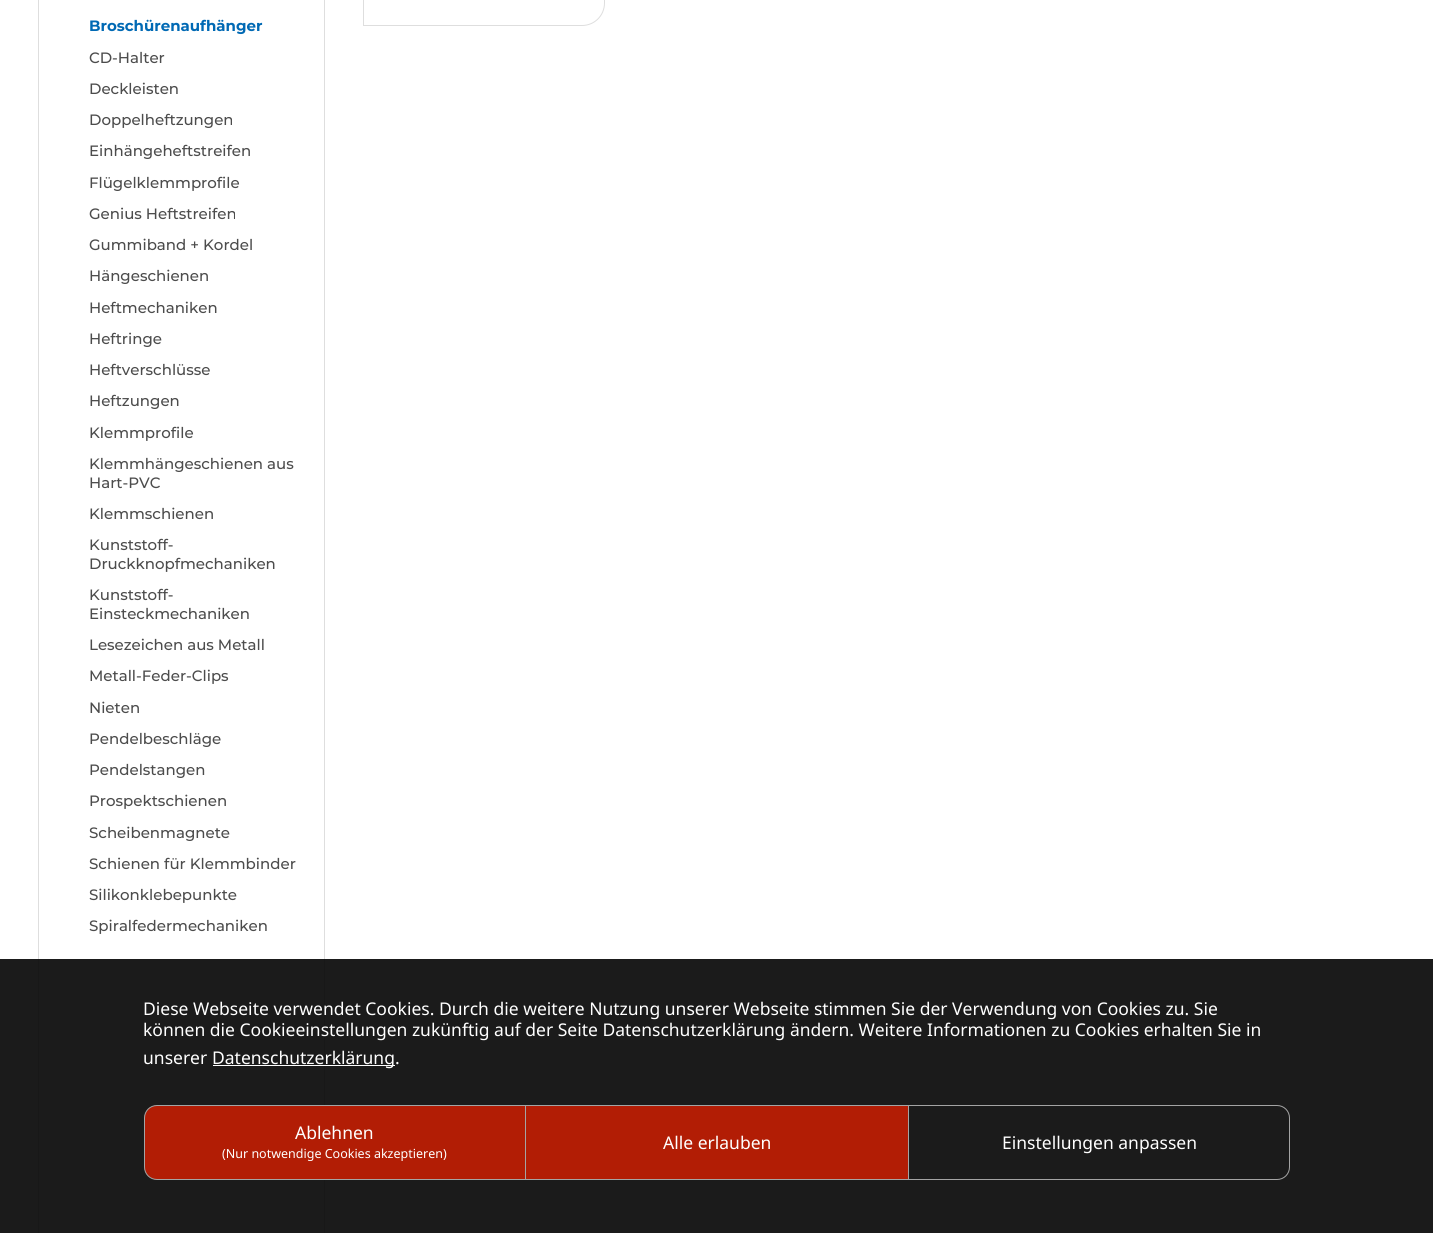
#include <cairo.h>
#include <math.h>
#include <stddef.h>


int main(void) {
    cairo_surface_t *surface = cairo_image_surface_create(CAIRO_FORMAT_RGB24, 1433, 1233);
    cairo_t *cr = cairo_create(surface);
    cairo_font_options_t *options = cairo_font_options_create();
    cairo_font_options_set_hint_metrics(options, CAIRO_HINT_METRICS_OFF);
    cairo_font_options_set_hint_style(options, CAIRO_HINT_STYLE_NONE);
    cairo_set_font_options(cr, options);
    cairo_set_miter_limit(cr, 4);
    cairo_set_source_rgb(cr, 1, 1, 1);
    cairo_paint(cr);
    cairo_new_path(cr);
    cairo_move_to(cr, 386, -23.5);
    cairo_line_to(cr, 582, -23.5);
    cairo_curve_to(cr, 594.5, -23.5, 604.5, -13.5, 604.5, -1);
    cairo_line_to(cr, 604.5, 3);
    cairo_curve_to(cr, 604.5, 15.5, 594.5, 25.5, 582, 25.5);
    cairo_line_to(cr, 363.5, 25.5);
    cairo_line_to(cr, 363.5, -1);
    cairo_curve_to(cr, 363.5, -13.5, 373.5, -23.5, 386, -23.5);
    cairo_close_path(cr);
    cairo_set_source_rgb(cr, 0.871, 0.871, 0.871);
    cairo_set_line_width(cr, 1);
    cairo_stroke(cr);
    cairo_rectangle(cr, 38.5, -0.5, 286, 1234);
    cairo_stroke(cr);
    cairo_select_font_face(cr, "Montserrat", CAIRO_FONT_SLANT_NORMAL, CAIRO_FONT_WEIGHT_BOLD);
    cairo_set_font_size(cr, 15);
    cairo_set_source_rgb(cr, 0, 0.412, 0.706);
    cairo_move_to(cr, 89, 31);
    cairo_show_text(cr, "Broschürenaufhänger");
    cairo_select_font_face(cr, "Montserrat Medium", CAIRO_FONT_SLANT_NORMAL, CAIRO_FONT_WEIGHT_NORMAL);
    cairo_set_source_rgb(cr, 0.298, 0.298, 0.298);
    cairo_move_to(cr, 89, 63);
    cairo_show_text(cr, "CD-Halter");
    cairo_move_to(cr, 89, 94);
    cairo_show_text(cr, "Deckleisten");
    cairo_move_to(cr, 89, 125);
    cairo_show_text(cr, "Doppelheftzungen");
    cairo_move_to(cr, 89, 156);
    cairo_show_text(cr, "Einhängeheftstreifen");
    cairo_move_to(cr, 89, 188);
    cairo_show_text(cr, "Flügelklemmprofile");
    cairo_move_to(cr, 89, 219);
    cairo_show_text(cr, "Genius Heftstreifen");
    cairo_move_to(cr, 89, 250);
    cairo_show_text(cr, "Gummiband + Kordel");
    cairo_move_to(cr, 89, 281);
    cairo_show_text(cr, "Hängeschienen");
    cairo_move_to(cr, 89, 313);
    cairo_show_text(cr, "Heftmechaniken");
    cairo_move_to(cr, 89, 344);
    cairo_show_text(cr, "Heftringe");
    cairo_move_to(cr, 89, 375);
    cairo_show_text(cr, "Heftverschlüsse");
    cairo_move_to(cr, 89, 406);
    cairo_show_text(cr, "Heftzungen");
    cairo_move_to(cr, 89, 438);
    cairo_show_text(cr, "Klemmprofile");
    cairo_move_to(cr, 89, 469);
    cairo_show_text(cr, "Klemmhängeschienen aus");
    cairo_move_to(cr, 89, 488);
    cairo_show_text(cr, "Hart-PVC");
    cairo_move_to(cr, 89, 519);
    cairo_show_text(cr, "Klemmschienen");
    cairo_move_to(cr, 89, 550);
    cairo_show_text(cr, "Kunststoff-");
    cairo_move_to(cr, 89, 569);
    cairo_show_text(cr, "Druckknopfmechaniken");
    cairo_move_to(cr, 89, 600);
    cairo_show_text(cr, "Kunststoff-");
    cairo_move_to(cr, 89, 619);
    cairo_show_text(cr, "Einsteckmechaniken");
    cairo_move_to(cr, 89, 650);
    cairo_show_text(cr, "Lesezeichen aus Metall");
    cairo_move_to(cr, 89, 681);
    cairo_show_text(cr, "Metall-Feder-Clips");
    cairo_move_to(cr, 89, 713);
    cairo_show_text(cr, "Nieten");
    cairo_move_to(cr, 89, 744);
    cairo_show_text(cr, "Pendelbeschläge");
    cairo_move_to(cr, 89, 775);
    cairo_show_text(cr, "Pendelstangen");
    cairo_move_to(cr, 89, 806);
    cairo_show_text(cr, "Prospektschienen");
    cairo_move_to(cr, 89, 838);
    cairo_show_text(cr, "Scheibenmagnete");
    cairo_move_to(cr, 89, 869);
    cairo_show_text(cr, "Schienen für Klemmbinder");
    cairo_move_to(cr, 89, 900);
    cairo_show_text(cr, "Silikonklebepunkte");
    cairo_move_to(cr, 89, 931);
    cairo_show_text(cr, "Spiralfedermechaniken");
    cairo_set_source_rgba(cr, 0.012, 0.012, 0.012, 0.9);
    cairo_rectangle(cr, 0, 959, 1433, 274);
    cairo_fill(cr);
    cairo_select_font_face(cr, "Noto Sans", CAIRO_FONT_SLANT_NORMAL, CAIRO_FONT_WEIGHT_NORMAL);
    cairo_set_font_size(cr, 17.5);
    cairo_set_source_rgb(cr, 1, 1, 1);
    cairo_move_to(cr, 143, 1015);
    cairo_show_text(cr, "Diese Webseite verwendet Cookies. Durch die weitere Nutzung unserer Webseite stimmen Sie der Verwendung von Cookies zu. Sie");
    cairo_move_to(cr, 143, 1036);
    cairo_show_text(cr, "können die Cookieeinstellungen zukünftig auf der Seite Datenschutzerklärung ändern. Weitere Informationen zu Cookies erhalten Sie in");
    cairo_move_to(cr, 143, 1064);
    cairo_show_text(cr, "unserer");
    cairo_rectangle(cr, 213, 1065, 182, 1);
    cairo_fill(cr);
    cairo_move_to(cr, 212, 1064);
    cairo_show_text(cr, "Datenschutzerklärung.");
    cairo_set_source_rgb(cr, 0.698, 0.114, 0.02);
    cairo_new_path(cr);
    cairo_move_to(cr, 157, 1105.5);
    cairo_line_to(cr, 525.5, 1105.5);
    cairo_line_to(cr, 525.5, 1179.5);
    cairo_line_to(cr, 157, 1179.5);
    cairo_curve_to(cr, 150, 1179.5, 144.5, 1174, 144.5, 1167);
    cairo_line_to(cr, 144.5, 1118);
    cairo_curve_to(cr, 144.5, 1111, 150, 1105.5, 157, 1105.5);
    cairo_close_path(cr);
    cairo_fill_preserve(cr);
    cairo_set_source_rgb(cr, 0.643, 0.643, 0.643);
    cairo_stroke(cr);
    cairo_set_source_rgb(cr, 1, 1, 1);
    cairo_move_to(cr, 295, 1139);
    cairo_show_text(cr, "Ablehnen");
    cairo_set_font_size(cr, 12.5);
    cairo_move_to(cr, 222, 1158);
    cairo_show_text(cr, "(Nur notwendige Cookies akzeptieren)");
    cairo_set_source_rgb(cr, 0.698, 0.114, 0.02);
    cairo_rectangle(cr, 526, 1106, 382, 73);
    cairo_fill(cr);
    cairo_set_source_rgb(cr, 0.643, 0.643, 0.643);
    cairo_rectangle(cr, 526, 1105, 382, 1);
    cairo_fill(cr);
    cairo_rectangle(cr, 526, 1179, 382, 1);
    cairo_fill(cr);
    cairo_set_font_size(cr, 17.5);
    cairo_set_source_rgb(cr, 1, 1, 1);
    cairo_move_to(cr, 663, 1149);
    cairo_show_text(cr, "Alle erlauben");
    cairo_new_path(cr);
    cairo_move_to(cr, 908.5, 1105.5);
    cairo_line_to(cr, 1277, 1105.5);
    cairo_curve_to(cr, 1284, 1105.5, 1289.5, 1111, 1289.5, 1118);
    cairo_line_to(cr, 1289.5, 1167);
    cairo_curve_to(cr, 1289.5, 1174, 1284, 1179.5, 1277, 1179.5);
    cairo_line_to(cr, 908.5, 1179.5);
    cairo_close_path(cr);
    cairo_set_source_rgb(cr, 0.643, 0.643, 0.643);
    cairo_stroke(cr);
    cairo_set_source_rgb(cr, 1, 1, 1);
    cairo_move_to(cr, 1002, 1149);
    cairo_show_text(cr, "Einstellungen anpassen");
    cairo_surface_write_to_png(surface, "page.png");
    cairo_font_options_destroy(options);
    cairo_destroy(cr);
    cairo_surface_destroy(surface);
    return 0;
}
